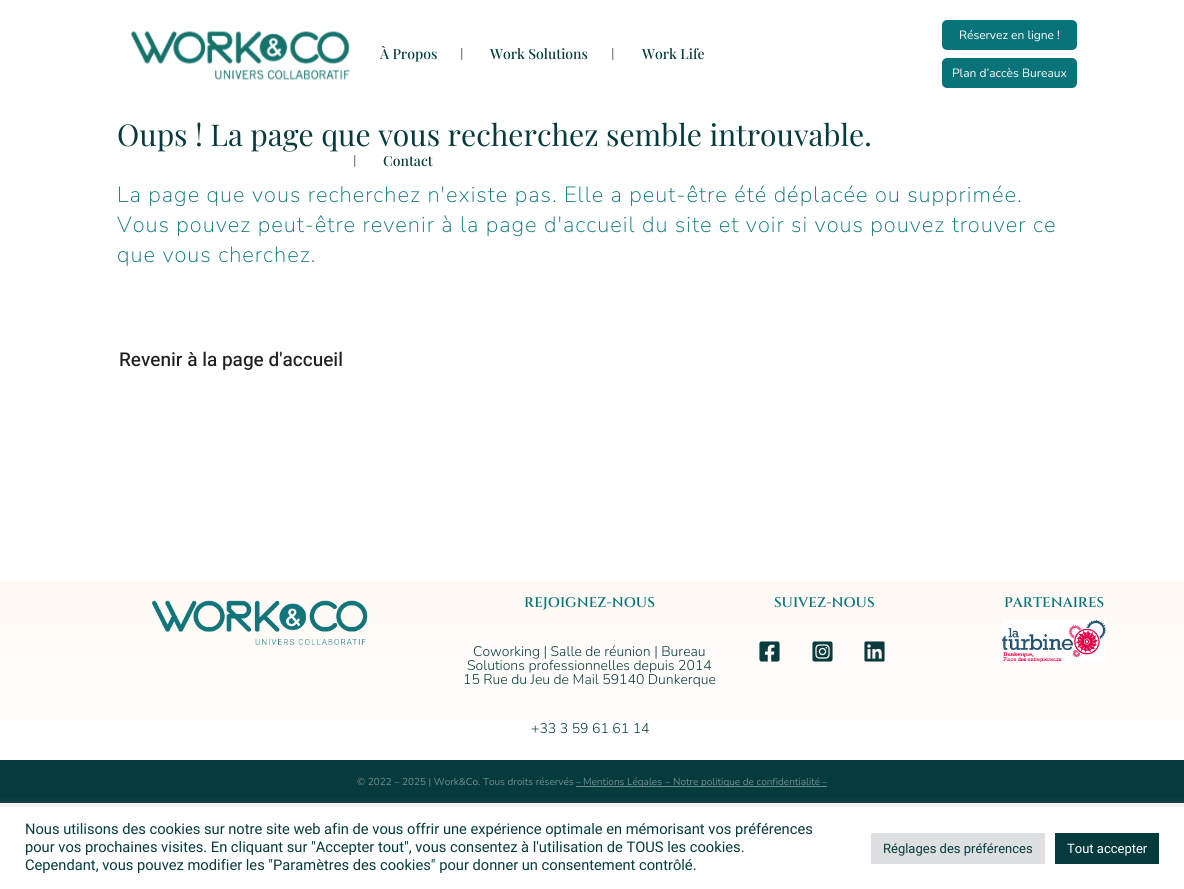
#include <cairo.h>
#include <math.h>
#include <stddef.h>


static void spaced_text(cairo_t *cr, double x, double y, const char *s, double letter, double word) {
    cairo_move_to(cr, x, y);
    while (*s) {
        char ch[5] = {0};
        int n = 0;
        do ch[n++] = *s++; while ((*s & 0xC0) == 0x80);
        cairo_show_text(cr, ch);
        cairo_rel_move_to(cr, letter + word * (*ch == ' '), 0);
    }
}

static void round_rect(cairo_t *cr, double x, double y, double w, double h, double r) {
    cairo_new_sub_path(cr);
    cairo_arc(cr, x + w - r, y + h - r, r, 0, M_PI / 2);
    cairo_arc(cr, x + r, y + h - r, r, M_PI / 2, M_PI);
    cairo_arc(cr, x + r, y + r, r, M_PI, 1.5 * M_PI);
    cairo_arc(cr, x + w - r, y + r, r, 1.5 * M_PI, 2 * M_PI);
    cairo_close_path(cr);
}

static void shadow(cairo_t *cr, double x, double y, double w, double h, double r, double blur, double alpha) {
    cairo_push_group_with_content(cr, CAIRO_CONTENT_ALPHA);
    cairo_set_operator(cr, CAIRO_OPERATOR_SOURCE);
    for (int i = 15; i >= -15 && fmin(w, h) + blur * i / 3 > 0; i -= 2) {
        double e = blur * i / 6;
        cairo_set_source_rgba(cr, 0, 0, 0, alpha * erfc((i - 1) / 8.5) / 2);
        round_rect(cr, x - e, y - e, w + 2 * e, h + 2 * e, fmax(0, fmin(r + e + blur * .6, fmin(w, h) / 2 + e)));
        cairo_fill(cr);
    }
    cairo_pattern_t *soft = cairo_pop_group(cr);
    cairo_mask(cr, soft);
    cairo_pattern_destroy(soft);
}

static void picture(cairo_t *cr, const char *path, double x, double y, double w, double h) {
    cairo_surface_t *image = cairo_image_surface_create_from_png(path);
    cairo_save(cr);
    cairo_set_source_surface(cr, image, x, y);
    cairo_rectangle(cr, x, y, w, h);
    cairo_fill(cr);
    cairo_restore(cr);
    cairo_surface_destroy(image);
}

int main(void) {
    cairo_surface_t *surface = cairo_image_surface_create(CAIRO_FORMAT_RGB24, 1184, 889);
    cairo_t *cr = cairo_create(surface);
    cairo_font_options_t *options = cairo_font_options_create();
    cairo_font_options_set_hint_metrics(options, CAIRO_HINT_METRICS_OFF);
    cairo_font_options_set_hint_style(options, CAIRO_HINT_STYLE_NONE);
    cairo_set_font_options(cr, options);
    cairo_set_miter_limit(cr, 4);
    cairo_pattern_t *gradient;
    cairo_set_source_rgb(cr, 1, 1, 1);
    cairo_paint(cr);
    picture(cr, "img1.png", 130, 30, 220, 50);
    cairo_select_font_face(cr, "Playfair Display Medium", CAIRO_FONT_SLANT_NORMAL, CAIRO_FONT_WEIGHT_NORMAL);
    cairo_set_font_size(cr, 14);
    cairo_set_source_rgb(cr, 0.027, 0.231, 0.239);
    cairo_move_to(cr, 380, 59);
    cairo_show_text(cr, "À Propos");
    cairo_select_font_face(cr, "Heebo", CAIRO_FONT_SLANT_NORMAL, CAIRO_FONT_WEIGHT_NORMAL);
    cairo_set_source_rgb(cr, 0.412, 0.412, 0.412);
    cairo_move_to(cr, 460, 58);
    cairo_show_text(cr, "|");
    cairo_select_font_face(cr, "Playfair Display Medium", CAIRO_FONT_SLANT_NORMAL, CAIRO_FONT_WEIGHT_NORMAL);
    cairo_set_source_rgb(cr, 0.027, 0.231, 0.239);
    cairo_move_to(cr, 490, 59);
    cairo_show_text(cr, "Work Solutions");
    cairo_select_font_face(cr, "Heebo", CAIRO_FONT_SLANT_NORMAL, CAIRO_FONT_WEIGHT_NORMAL);
    cairo_set_source_rgb(cr, 0.412, 0.412, 0.412);
    cairo_move_to(cr, 611, 58);
    cairo_show_text(cr, "|");
    cairo_select_font_face(cr, "Playfair Display Medium", CAIRO_FONT_SLANT_NORMAL, CAIRO_FONT_WEIGHT_NORMAL);
    cairo_set_source_rgb(cr, 0.027, 0.231, 0.239);
    cairo_move_to(cr, 642, 59);
    cairo_show_text(cr, "Work Life");
    cairo_select_font_face(cr, "Heebo", CAIRO_FONT_SLANT_NORMAL, CAIRO_FONT_WEIGHT_NORMAL);
    cairo_set_source_rgb(cr, 0.412, 0.412, 0.412);
    cairo_move_to(cr, 353, 165);
    cairo_show_text(cr, "|");
    cairo_select_font_face(cr, "Playfair Display Medium", CAIRO_FONT_SLANT_NORMAL, CAIRO_FONT_WEIGHT_NORMAL);
    cairo_set_source_rgb(cr, 0.027, 0.231, 0.239);
    cairo_move_to(cr, 383, 166);
    cairo_show_text(cr, "Contact");
    cairo_set_source_rgb(cr, 0.035, 0.455, 0.475);
    round_rect(cr, 942, 20, 135, 30, 5);
    cairo_fill(cr);
    cairo_select_font_face(cr, "Nunito", CAIRO_FONT_SLANT_NORMAL, CAIRO_FONT_WEIGHT_NORMAL);
    cairo_set_font_size(cr, 12);
    cairo_set_source_rgb(cr, 1, 1, 1);
    cairo_move_to(cr, 959, 39);
    cairo_show_text(cr, "Réservez en ligne !");
    cairo_set_source_rgb(cr, 0.035, 0.455, 0.475);
    round_rect(cr, 942, 58, 135, 30, 5);
    cairo_fill(cr);
    cairo_set_source_rgb(cr, 1, 1, 1);
    cairo_move_to(cr, 952, 77);
    cairo_show_text(cr, "Plan d’accès Bureaux");
    cairo_select_font_face(cr, "Playfair Display", CAIRO_FONT_SLANT_NORMAL, CAIRO_FONT_WEIGHT_NORMAL);
    cairo_set_font_size(cr, 30);
    cairo_set_source_rgb(cr, 0.027, 0.231, 0.239);
    cairo_move_to(cr, 117, 146);
    cairo_show_text(cr, "Oups ! La page que vous recherchez semble introuvable.");
    cairo_select_font_face(cr, "Nunito ExtraLight", CAIRO_FONT_SLANT_NORMAL, CAIRO_FONT_WEIGHT_NORMAL);
    cairo_set_font_size(cr, 22);
    cairo_set_source_rgb(cr, 0.035, 0.455, 0.475);
    spaced_text(cr, 117, 202, "La page que vous recherchez n'existe pas. Elle a peut-être été déplacée ou supprimée.", 1, 0);
    spaced_text(cr, 117, 232, "Vous pouvez peut-être revenir à la page d'accueil du site et voir si vous pouvez trouver ce", 1, 0);
    spaced_text(cr, 117, 262, "que vous cherchez.", 1, 0);
    cairo_select_font_face(cr, "Heebo Medium", CAIRO_FONT_SLANT_NORMAL, CAIRO_FONT_WEIGHT_NORMAL);
    cairo_set_font_size(cr, 19);
    cairo_set_source_rgb(cr, 0.122, 0.122, 0.122);
    cairo_move_to(cr, 119, 366);
    cairo_show_text(cr, "Revenir à la page d'accueil");
    gradient = cairo_pattern_create_linear(592, 581, 592, 760);
    cairo_pattern_add_color_stop_rgba(gradient, 0, 1, 0.976, 0.957, 1);
    cairo_pattern_add_color_stop_rgba(gradient, 1, 1, 1, 1, 1);
    cairo_set_source(cr, gradient);
    cairo_pattern_destroy(gradient);
    cairo_rectangle(cr, 0, 581, 1184, 138);
    cairo_fill(cr);
    picture(cr, "img2.png", 152, 600, 216, 45);
    cairo_select_font_face(cr, "Cinzel SemiBold", CAIRO_FONT_SLANT_NORMAL, CAIRO_FONT_WEIGHT_NORMAL);
    cairo_set_font_size(cr, 14);
    cairo_set_source_rgb(cr, 0.035, 0.455, 0.475);
    cairo_move_to(cr, 524, 607);
    cairo_show_text(cr, "REJOIGNEZ-NOUS");
    cairo_select_font_face(cr, "Nunito Light", CAIRO_FONT_SLANT_NORMAL, CAIRO_FONT_WEIGHT_NORMAL);
    cairo_set_source_rgb(cr, 0.027, 0.231, 0.239);
    cairo_move_to(cr, 473, 656);
    cairo_show_text(cr, "Coworking | Salle de réunion | Bureau");
    cairo_move_to(cr, 467, 670);
    cairo_show_text(cr, "Solutions professionnelles depuis 2014");
    cairo_move_to(cr, 463, 684);
    cairo_show_text(cr, "15 Rue du Jeu de Mail 59140 Dunkerque");
    cairo_move_to(cr, 531, 733);
    cairo_show_text(cr, "+33 3 59 61 61 14");
    cairo_select_font_face(cr, "Cinzel SemiBold", CAIRO_FONT_SLANT_NORMAL, CAIRO_FONT_WEIGHT_NORMAL);
    cairo_set_source_rgb(cr, 0.035, 0.455, 0.475);
    cairo_move_to(cr, 774, 607);
    cairo_show_text(cr, "SUIVEZ-NOUS");
    picture(cr, "img3.png", 759, 641, 21, 21);
    picture(cr, "img4.png", 812, 641, 21, 21);
    picture(cr, "img5.png", 864, 641, 21, 21);
    cairo_move_to(cr, 1004, 607);
    cairo_show_text(cr, "PARTENAIRES");
    picture(cr, "img6.png", 1002, 620, 104, 42);
    cairo_set_source_rgb(cr, 0.027, 0.231, 0.239);
    cairo_rectangle(cr, 0, 760, 1184, 43);
    cairo_fill(cr);
    cairo_select_font_face(cr, "Nunito", CAIRO_FONT_SLANT_NORMAL, CAIRO_FONT_WEIGHT_NORMAL);
    cairo_set_font_size(cr, 10);
    cairo_set_source_rgb(cr, 0.435, 0.553, 0.557);
    cairo_move_to(cr, 357, 785);
    cairo_show_text(cr, "© 2022 – 2025 | Work&Co. Tous droits réservés –");
    cairo_rectangle(cr, 576, 786, 251, 1);
    cairo_fill(cr);
    cairo_move_to(cr, 583, 785);
    cairo_show_text(cr, "Mentions Légales");
    cairo_move_to(cr, 665, 785);
    cairo_show_text(cr, "–");
    cairo_move_to(cr, 673, 785);
    cairo_show_text(cr, "Notre politique de confidentialité");
    cairo_move_to(cr, 822, 785);
    cairo_show_text(cr, "–");
    cairo_save(cr);
    cairo_rectangle(cr, 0, 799, 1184, 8);
    cairo_clip(cr);
    cairo_set_source_rgb(cr, 0.675, 0.671, 0.671);
    shadow(cr, 0, 806, 1184, 82, 0, 5, 0.3);
    cairo_restore(cr);
    cairo_select_font_face(cr, "Heebo", CAIRO_FONT_SLANT_NORMAL, CAIRO_FONT_WEIGHT_NORMAL);
    cairo_set_font_size(cr, 14.67);
    cairo_set_source_rgb(cr, 0.027, 0.231, 0.239);
    cairo_move_to(cr, 25, 834);
    cairo_show_text(cr, "Nous utilisons des cookies sur notre site web afin de vous offrir une expérience optimale en mémorisant vos préférences");
    cairo_move_to(cr, 25, 852);
    cairo_show_text(cr, "pour vos prochaines visites. En cliquant sur \"Accepter tout\", vous consentez à l'utilisation de TOUS les cookies.");
    cairo_move_to(cr, 25, 870);
    cairo_show_text(cr, "Cependant, vous pouvez modifier les \"Paramètres des cookies\" pour donner un consentement contrôlé.");
    cairo_set_source_rgb(cr, 0.871, 0.875, 0.878);
    cairo_rectangle(cr, 871, 833, 174, 31);
    cairo_fill(cr);
    cairo_set_font_size(cr, 13);
    cairo_set_source_rgb(cr, 0.027, 0.231, 0.239);
    cairo_move_to(cr, 883, 853);
    cairo_show_text(cr, "Réglages des préférences");
    cairo_rectangle(cr, 1055, 833, 104, 31);
    cairo_fill(cr);
    cairo_set_source_rgb(cr, 1, 1, 1);
    cairo_move_to(cr, 1067, 853);
    cairo_show_text(cr, "Tout accepter");
    cairo_surface_write_to_png(surface, "page.png");
    cairo_font_options_destroy(options);
    cairo_destroy(cr);
    cairo_surface_destroy(surface);
    return 0;
}
